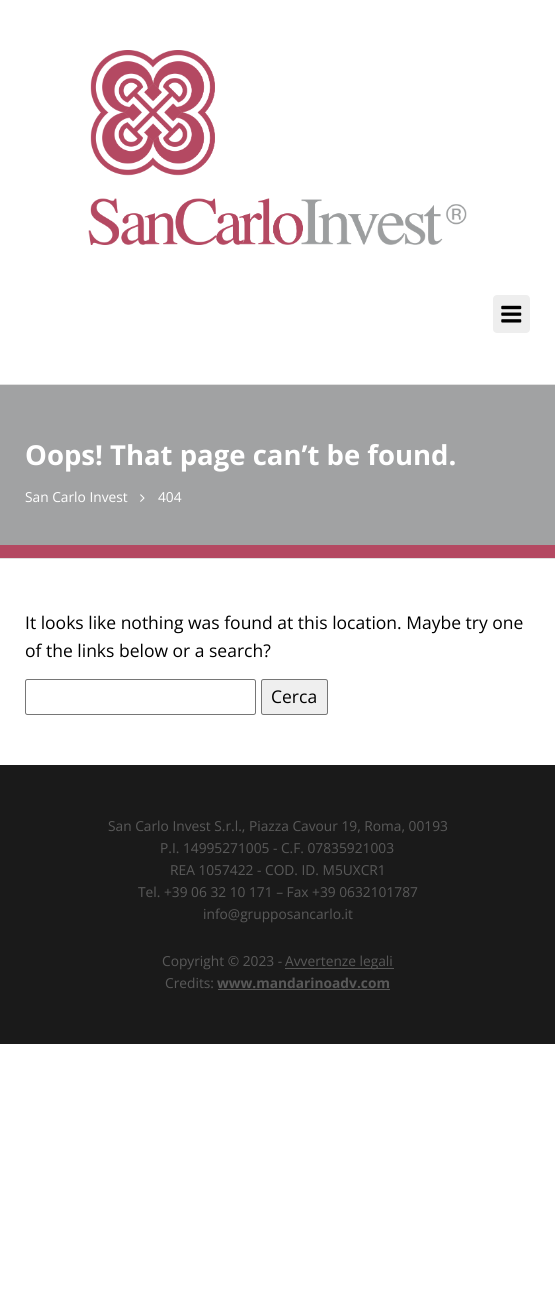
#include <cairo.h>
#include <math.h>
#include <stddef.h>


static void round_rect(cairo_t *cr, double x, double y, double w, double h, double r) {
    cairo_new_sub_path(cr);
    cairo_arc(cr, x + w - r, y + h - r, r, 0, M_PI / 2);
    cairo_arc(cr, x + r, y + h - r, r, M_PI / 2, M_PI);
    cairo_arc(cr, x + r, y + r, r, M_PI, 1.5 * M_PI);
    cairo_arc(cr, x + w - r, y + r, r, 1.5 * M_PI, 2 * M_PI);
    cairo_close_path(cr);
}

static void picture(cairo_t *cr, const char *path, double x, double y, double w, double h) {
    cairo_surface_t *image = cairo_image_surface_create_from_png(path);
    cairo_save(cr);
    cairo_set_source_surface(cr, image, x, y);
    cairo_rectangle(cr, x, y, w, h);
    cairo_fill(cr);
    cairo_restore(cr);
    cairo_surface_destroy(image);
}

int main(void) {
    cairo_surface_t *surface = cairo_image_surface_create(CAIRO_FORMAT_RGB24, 555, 1309);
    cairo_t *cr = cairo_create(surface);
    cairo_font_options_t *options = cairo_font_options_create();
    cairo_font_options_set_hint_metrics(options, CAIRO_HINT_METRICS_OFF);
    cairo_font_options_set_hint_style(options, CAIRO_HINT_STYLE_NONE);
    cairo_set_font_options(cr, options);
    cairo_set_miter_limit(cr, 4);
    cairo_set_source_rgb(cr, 1, 1, 1);
    cairo_paint(cr);
    picture(cr, "img1.png", 88, 50, 379, 195);
    cairo_set_source_rgb(cr, 0.933, 0.933, 0.933);
    round_rect(cr, 493, 295, 37, 38, 4);
    cairo_fill(cr);
    picture(cr, "img2.png", 501, 305, 21, 18);
    cairo_set_source_rgb(cr, 0.878, 0.878, 0.878);
    cairo_rectangle(cr, 0, 384, 555, 1);
    cairo_fill(cr);
    cairo_rectangle(cr, 0, 558, 555, 1);
    cairo_fill(cr);
    cairo_set_source_rgb(cr, 0.631, 0.635, 0.639);
    cairo_rectangle(cr, 0, 385, 555, 160);
    cairo_fill(cr);
    cairo_set_source_rgb(cr, 0.706, 0.286, 0.384);
    cairo_rectangle(cr, 0, 545, 555, 13);
    cairo_fill(cr);
    cairo_select_font_face(cr, "Open Sans", CAIRO_FONT_SLANT_NORMAL, CAIRO_FONT_WEIGHT_BOLD);
    cairo_set_font_size(cr, 27.5);
    cairo_set_source_rgb(cr, 1, 1, 1);
    cairo_move_to(cr, 25, 465);
    cairo_show_text(cr, "Oops! That page can’t be found.");
    cairo_select_font_face(cr, "Open Sans", CAIRO_FONT_SLANT_NORMAL, CAIRO_FONT_WEIGHT_NORMAL);
    cairo_set_font_size(cr, 13.75);
    cairo_move_to(cr, 25, 502);
    cairo_show_text(cr, "San Carlo Invest");
    picture(cr, "img3.png", 140, 494, 5, 8);
    cairo_move_to(cr, 158, 502);
    cairo_show_text(cr, "404");
    cairo_set_font_size(cr, 17.5);
    cairo_set_source_rgb(cr, 0, 0, 0);
    cairo_move_to(cr, 25, 629);
    cairo_show_text(cr, "It looks like nothing was found at this location. Maybe try one");
    cairo_move_to(cr, 25, 657);
    cairo_show_text(cr, "of the links below or a search?");
    round_rect(cr, 25.5, 679.5, 230, 35, 2);
    cairo_set_source_rgb(cr, 0.463, 0.463, 0.463);
    cairo_set_line_width(cr, 1);
    cairo_stroke(cr);
    cairo_set_source_rgb(cr, 0.937, 0.937, 0.937);
    round_rect(cr, 261.5, 679.5, 66, 35, 2);
    cairo_fill_preserve(cr);
    cairo_set_source_rgb(cr, 0.463, 0.463, 0.463);
    cairo_stroke(cr);
    cairo_set_source_rgb(cr, 0, 0, 0);
    cairo_move_to(cr, 271, 703);
    cairo_show_text(cr, "Cerca");
    cairo_set_source_rgb(cr, 0.102, 0.102, 0.102);
    cairo_rectangle(cr, 0, 765, 555, 279);
    cairo_fill(cr);
    cairo_set_font_size(cr, 13.75);
    cairo_set_source_rgb(cr, 0.349, 0.349, 0.349);
    cairo_move_to(cr, 108, 831);
    cairo_show_text(cr, "San Carlo Invest S.r.l., Piazza Cavour 19, Roma, 00193");
    cairo_move_to(cr, 160, 853);
    cairo_show_text(cr, "P.I. 14995271005 - C.F. 07835921003");
    cairo_move_to(cr, 170, 875);
    cairo_show_text(cr, "REA 1057422 - COD. ID. M5UXCR1");
    cairo_move_to(cr, 138, 897);
    cairo_show_text(cr, "Tel. +39 06 32 10 171 – Fax +39 0632101787");
    cairo_move_to(cr, 203, 919);
    cairo_show_text(cr, "info@grupposancarlo.it");
    cairo_move_to(cr, 162, 966);
    cairo_show_text(cr, "Copyright © 2023 -");
    cairo_rectangle(cr, 285, 968, 109, 1);
    cairo_fill(cr);
    cairo_move_to(cr, 285, 966);
    cairo_show_text(cr, "Avvertenze legali");
    cairo_move_to(cr, 165, 988);
    cairo_show_text(cr, "Credits:");
    cairo_select_font_face(cr, "Open Sans", CAIRO_FONT_SLANT_NORMAL, CAIRO_FONT_WEIGHT_BOLD);
    cairo_move_to(cr, 217, 988);
    cairo_show_text(cr, "www.mandarinoadv.com");
    cairo_rectangle(cr, 218, 989, 172, 1);
    cairo_fill(cr);
    cairo_surface_write_to_png(surface, "page.png");
    cairo_font_options_destroy(options);
    cairo_destroy(cr);
    cairo_surface_destroy(surface);
    return 0;
}
